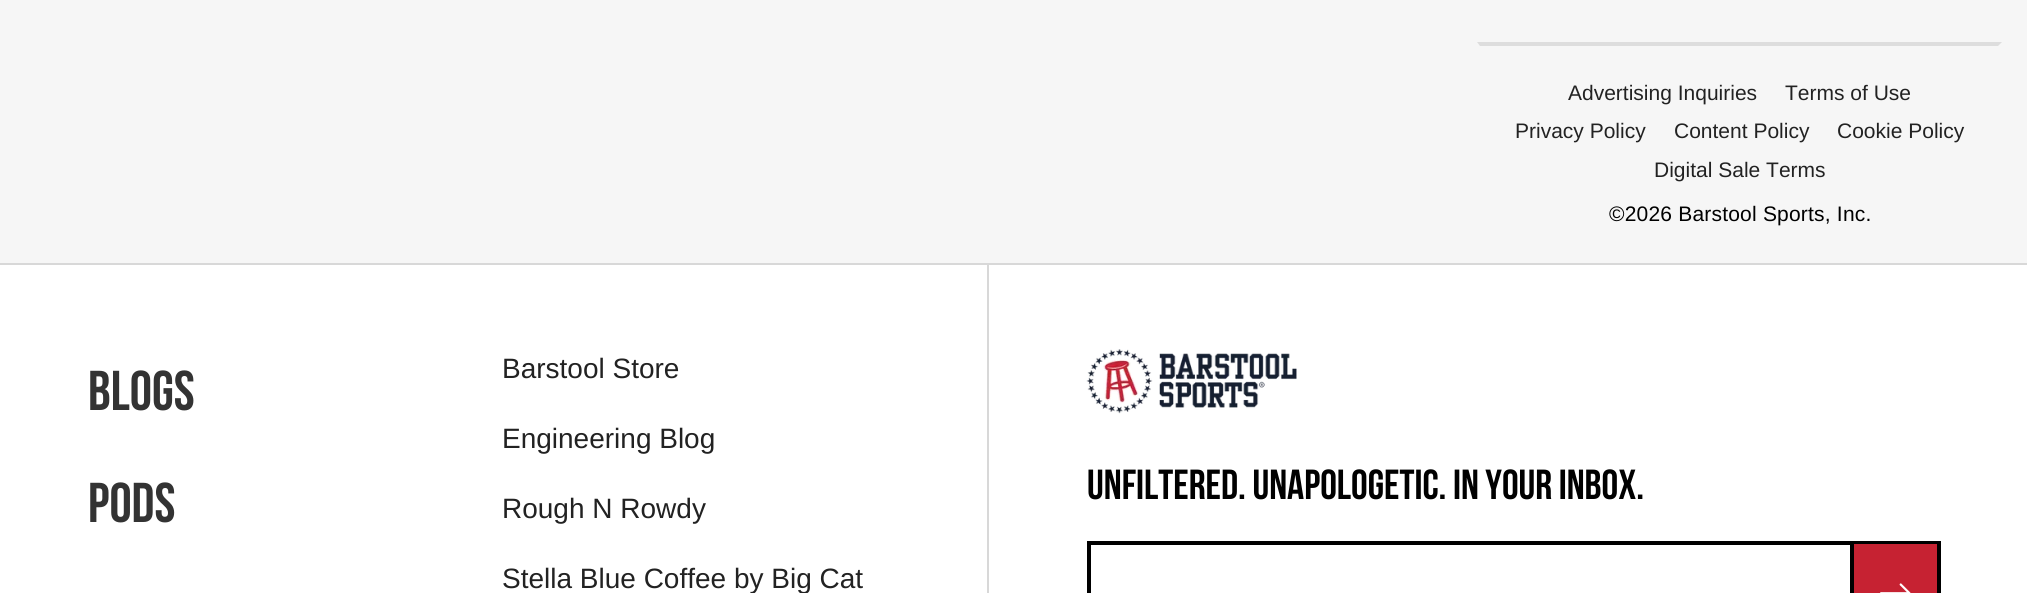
#include <cairo.h>
#include <math.h>
#include <stddef.h>


static void spaced_text(cairo_t *cr, double x, double y, const char *s, double letter, double word) {
    cairo_move_to(cr, x, y);
    while (*s) {
        char ch[5] = {0};
        int n = 0;
        do ch[n++] = *s++; while ((*s & 0xC0) == 0x80);
        cairo_show_text(cr, ch);
        cairo_rel_move_to(cr, letter + word * (*ch == ' '), 0);
    }
}

static void picture(cairo_t *cr, const char *path, double x, double y, double w, double h) {
    cairo_surface_t *image = cairo_image_surface_create_from_png(path);
    cairo_save(cr);
    cairo_set_source_surface(cr, image, x, y);
    cairo_rectangle(cr, x, y, w, h);
    cairo_fill(cr);
    cairo_restore(cr);
    cairo_surface_destroy(image);
}

int main(void) {
    cairo_surface_t *surface = cairo_image_surface_create(CAIRO_FORMAT_RGB24, 2027, 593);
    cairo_t *cr = cairo_create(surface);
    cairo_font_options_t *options = cairo_font_options_create();
    cairo_font_options_set_hint_metrics(options, CAIRO_HINT_METRICS_OFF);
    cairo_font_options_set_hint_style(options, CAIRO_HINT_STYLE_NONE);
    cairo_set_font_options(cr, options);
    cairo_set_miter_limit(cr, 4);
    cairo_set_source_rgb(cr, 0.961, 0.961, 0.961);
    cairo_paint(cr);
    cairo_set_source_rgb(cr, 0.867, 0.867, 0.867);
    cairo_new_path(cr);
    cairo_move_to(cr, 1477, 42);
    cairo_line_to(cr, 2002, 42);
    cairo_line_to(cr, 1998, 46);
    cairo_line_to(cr, 1480, 46);
    cairo_close_path(cr);
    cairo_fill(cr);
    cairo_select_font_face(cr, "Liberation Sans", CAIRO_FONT_SLANT_NORMAL, CAIRO_FONT_WEIGHT_NORMAL);
    cairo_set_font_size(cr, 21);
    cairo_set_source_rgb(cr, 0.133, 0.133, 0.133);
    cairo_move_to(cr, 1568, 100);
    cairo_show_text(cr, "Advertising Inquiries");
    cairo_move_to(cr, 1785, 100);
    cairo_show_text(cr, "Terms of Use");
    cairo_move_to(cr, 1515, 138);
    cairo_show_text(cr, "Privacy Policy");
    cairo_move_to(cr, 1674, 138);
    cairo_show_text(cr, "Content Policy");
    cairo_move_to(cr, 1837, 138);
    cairo_show_text(cr, "Cookie Policy");
    cairo_move_to(cr, 1654, 177);
    cairo_show_text(cr, "Digital Sale Terms");
    cairo_set_source_rgb(cr, 0, 0, 0);
    spaced_text(cr, 1609, 221, "©2026 Barstool Sports, Inc.", 0.2, 0);
    cairo_set_source_rgb(cr, 1, 1, 1);
    cairo_rectangle(cr, 0, 265, 2027, 328);
    cairo_fill(cr);
    cairo_set_source_rgb(cr, 0.847, 0.847, 0.847);
    cairo_rectangle(cr, 0, 263, 2027, 2);
    cairo_fill(cr);
    cairo_select_font_face(cr, "Bebas Neue", CAIRO_FONT_SLANT_NORMAL, CAIRO_FONT_WEIGHT_BOLD);
    cairo_set_font_size(cr, 56);
    cairo_set_source_rgb(cr, 0.2, 0.2, 0.2);
    cairo_move_to(cr, 88, 410);
    cairo_show_text(cr, "Blogs");
    cairo_move_to(cr, 88, 522);
    cairo_show_text(cr, "Pods");
    cairo_select_font_face(cr, "Liberation Sans", CAIRO_FONT_SLANT_NORMAL, CAIRO_FONT_WEIGHT_NORMAL);
    cairo_set_font_size(cr, 28);
    cairo_set_source_rgb(cr, 0.133, 0.133, 0.133);
    cairo_move_to(cr, 502, 378);
    cairo_show_text(cr, "Barstool Store");
    cairo_move_to(cr, 502, 448);
    cairo_show_text(cr, "Engineering Blog");
    cairo_move_to(cr, 502, 518);
    cairo_show_text(cr, "Rough N Rowdy");
    cairo_move_to(cr, 502, 588);
    cairo_show_text(cr, "Stella Blue Coffee by Big Cat");
    cairo_set_source_rgb(cr, 0.847, 0.847, 0.847);
    cairo_rectangle(cr, 987, 264, 2, 329);
    cairo_fill(cr);
    picture(cr, "img1.png", 1086, 349, 211, 65);
    cairo_select_font_face(cr, "Bebas Neue", CAIRO_FONT_SLANT_NORMAL, CAIRO_FONT_WEIGHT_BOLD);
    cairo_set_font_size(cr, 42);
    cairo_set_source_rgb(cr, 0, 0, 0);
    cairo_move_to(cr, 1087, 499);
    cairo_show_text(cr, "UNFILTERED. UNAPOLOGETIC. IN YOUR INBOX.");
    cairo_rectangle(cr, 1089, 543, 850, 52);
    cairo_set_line_width(cr, 4);
    cairo_stroke(cr);
    cairo_set_source_rgb(cr, 0.776, 0.133, 0.196);
    cairo_rectangle(cr, 1854, 544, 83, 49);
    cairo_fill(cr);
    cairo_set_source_rgb(cr, 0, 0, 0);
    cairo_rectangle(cr, 1850, 544, 4, 49);
    cairo_fill(cr);
    picture(cr, "img2.png", 1880, 583, 31, 10);
    cairo_surface_write_to_png(surface, "page.png");
    cairo_font_options_destroy(options);
    cairo_destroy(cr);
    cairo_surface_destroy(surface);
    return 0;
}
